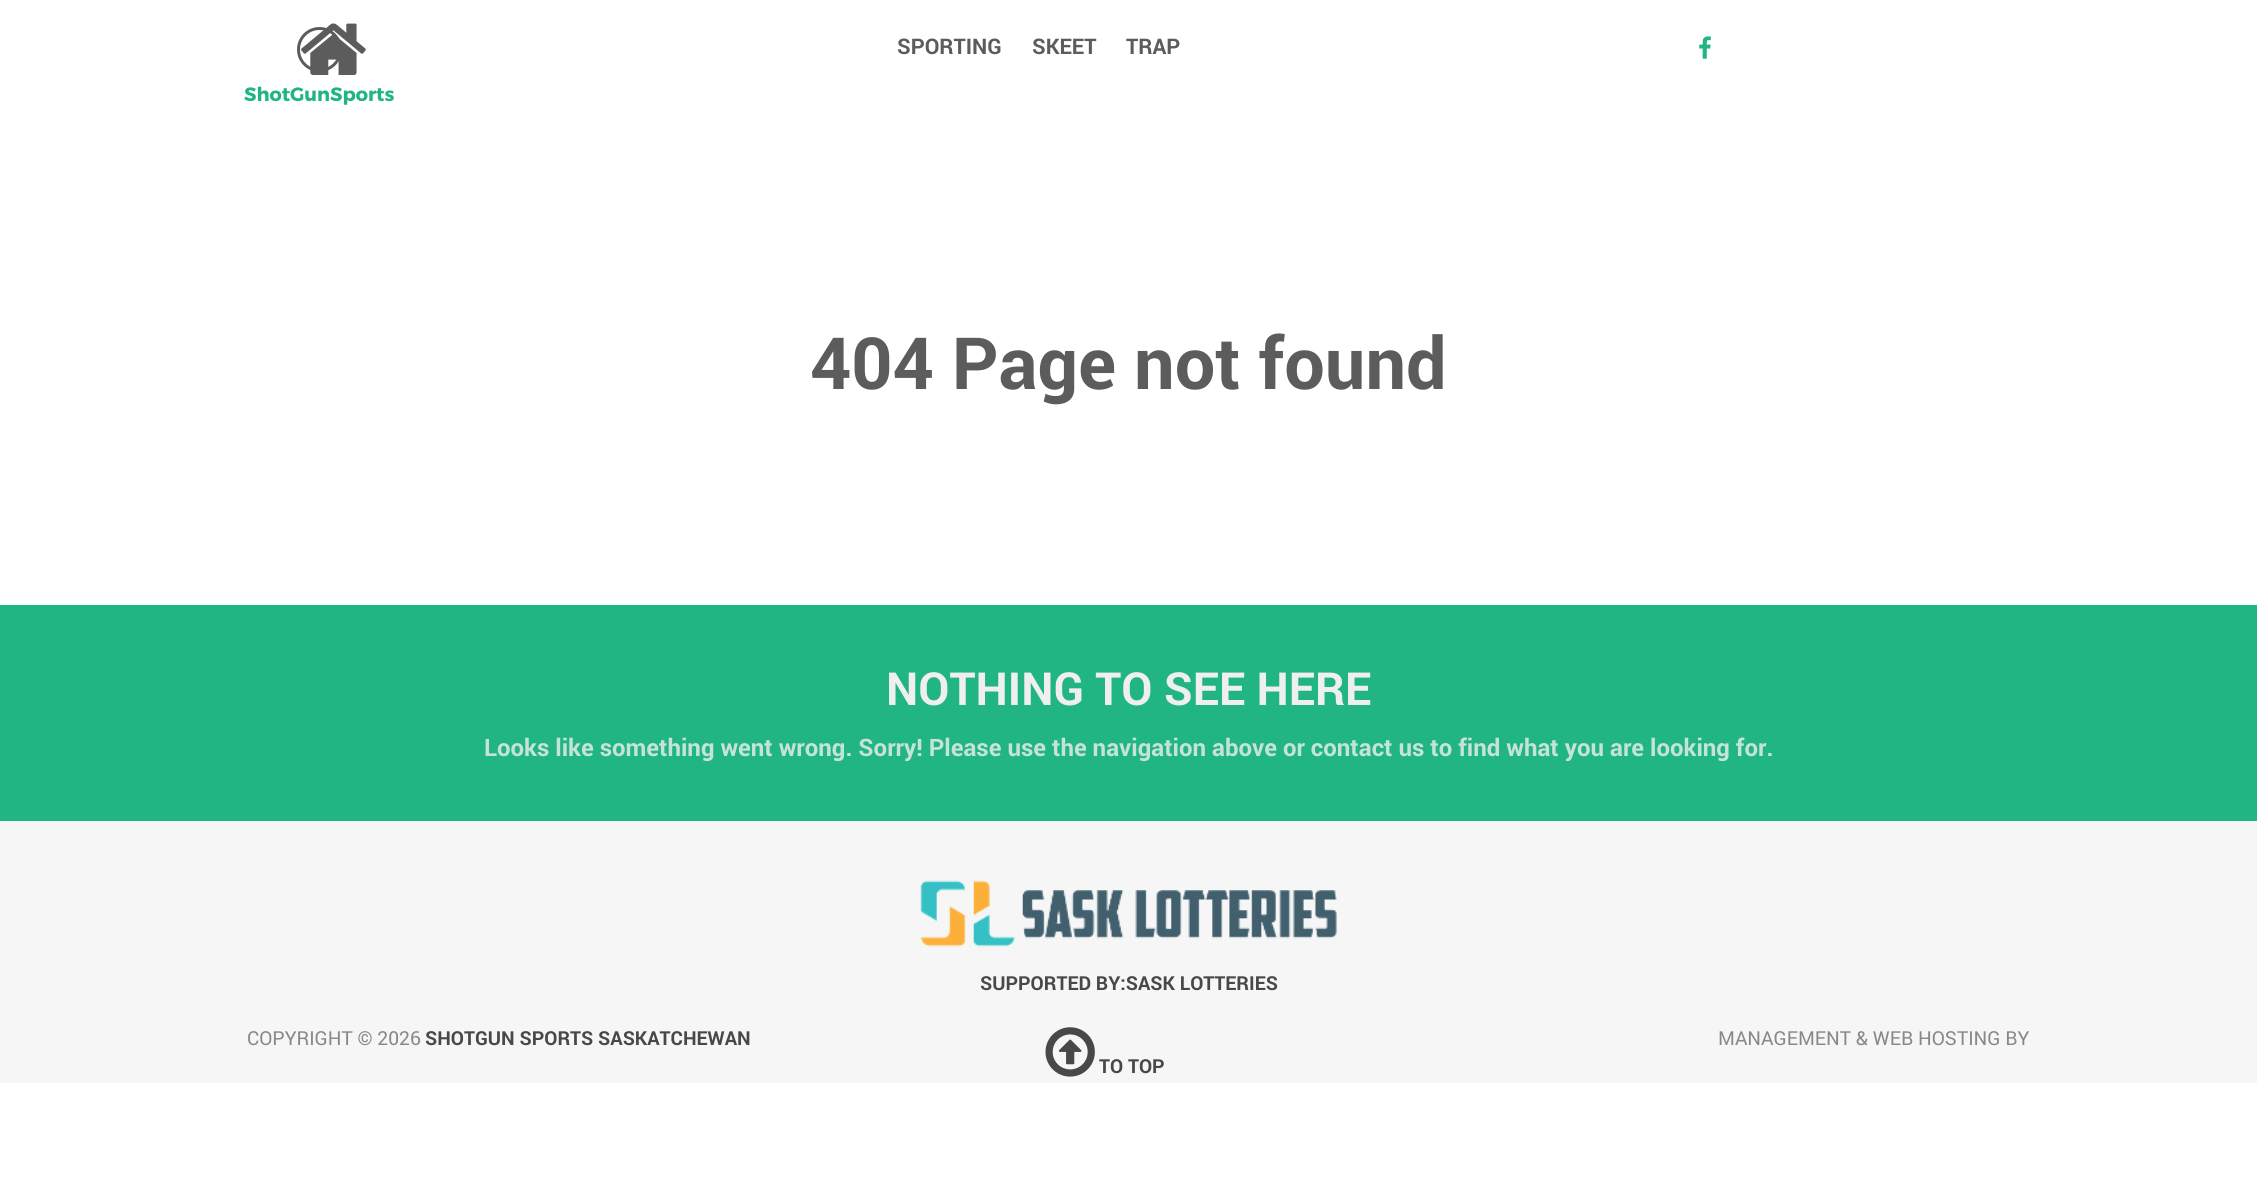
#include <cairo.h>
#include <math.h>
#include <stddef.h>


static void picture(cairo_t *cr, const char *path, double x, double y, double w, double h) {
    cairo_surface_t *image = cairo_image_surface_create_from_png(path);
    cairo_save(cr);
    cairo_set_source_surface(cr, image, x, y);
    cairo_rectangle(cr, x, y, w, h);
    cairo_fill(cr);
    cairo_restore(cr);
    cairo_surface_destroy(image);
}

int main(void) {
    cairo_surface_t *surface = cairo_image_surface_create(CAIRO_FORMAT_RGB24, 2257, 1198);
    cairo_t *cr = cairo_create(surface);
    cairo_font_options_t *options = cairo_font_options_create();
    cairo_font_options_set_hint_metrics(options, CAIRO_HINT_METRICS_OFF);
    cairo_font_options_set_hint_style(options, CAIRO_HINT_STYLE_NONE);
    cairo_set_font_options(cr, options);
    cairo_set_miter_limit(cr, 4);
    cairo_set_source_rgb(cr, 1, 1, 1);
    cairo_paint(cr);
    cairo_select_font_face(cr, "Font", CAIRO_FONT_SLANT_NORMAL, CAIRO_FONT_WEIGHT_BOLD);
    cairo_set_font_size(cr, 21.5);
    cairo_set_source_rgb(cr, 0.361, 0.361, 0.361);
    cairo_move_to(cr, 897, 54);
    cairo_show_text(cr, "SPORTING");
    cairo_move_to(cr, 1032, 54);
    cairo_show_text(cr, "SKEET");
    cairo_move_to(cr, 1126, 54);
    cairo_show_text(cr, "TRAP");
    picture(cr, "img1.png", 1699, 36, 12, 23);
    cairo_arc(cr, 319.5, 49.5, 21, 0, 2 * M_PI);
    cairo_set_line_width(cr, 3);
    cairo_stroke(cr);
    picture(cr, "img2.png", 301, 23, 65, 52);
    cairo_select_font_face(cr, "Montserrat", CAIRO_FONT_SLANT_NORMAL, CAIRO_FONT_WEIGHT_BOLD);
    cairo_set_font_size(cr, 19.25);
    cairo_set_source_rgb(cr, 0.129, 0.71, 0.514);
    cairo_move_to(cr, 244, 101);
    cairo_show_text(cr, "ShotGunSports");
    cairo_select_font_face(cr, "Font", CAIRO_FONT_SLANT_NORMAL, CAIRO_FONT_WEIGHT_BOLD);
    cairo_set_font_size(cr, 72);
    cairo_set_source_rgb(cr, 0.361, 0.361, 0.361);
    cairo_move_to(cr, 810, 389);
    cairo_show_text(cr, "404 Page not found");
    cairo_set_source_rgb(cr, 0.129, 0.71, 0.514);
    cairo_rectangle(cr, 0, 605, 2257, 216);
    cairo_fill(cr);
    cairo_set_font_size(cr, 45.6);
    cairo_set_source_rgb(cr, 0.937, 0.937, 0.937);
    cairo_move_to(cr, 886, 705);
    cairo_show_text(cr, "NOTHING TO SEE HERE");
    cairo_set_font_size(cr, 24);
    cairo_set_source_rgb(cr, 0.776, 0.89, 0.851);
    cairo_move_to(cr, 484, 756);
    cairo_show_text(cr, "Looks like something went wrong. Sorry! Please use the navigation above or contact us to find what you are looking for.");
    cairo_set_source_rgb(cr, 0.961, 0.961, 0.961);
    cairo_rectangle(cr, 0, 821, 2257, 262);
    cairo_fill(cr);
    picture(cr, "img3.png", 920, 880, 417, 67);
    cairo_set_font_size(cr, 19.25);
    cairo_set_source_rgb(cr, 0.282, 0.282, 0.282);
    cairo_move_to(cr, 980, 990);
    cairo_show_text(cr, "SUPPORTED BY:SASK LOTTERIES");
    cairo_select_font_face(cr, "Font", CAIRO_FONT_SLANT_NORMAL, CAIRO_FONT_WEIGHT_NORMAL);
    cairo_set_source_rgb(cr, 0.533, 0.533, 0.533);
    cairo_move_to(cr, 247, 1045);
    cairo_show_text(cr, "COPYRIGHT © 2026");
    cairo_select_font_face(cr, "Font", CAIRO_FONT_SLANT_NORMAL, CAIRO_FONT_WEIGHT_BOLD);
    cairo_set_source_rgb(cr, 0.282, 0.282, 0.282);
    cairo_move_to(cr, 425, 1045);
    cairo_show_text(cr, "SHOTGUN SPORTS SASKATCHEWAN");
    cairo_select_font_face(cr, "Font", CAIRO_FONT_SLANT_NORMAL, CAIRO_FONT_WEIGHT_NORMAL);
    cairo_set_source_rgb(cr, 0.533, 0.533, 0.533);
    cairo_move_to(cr, 1718, 1045);
    cairo_show_text(cr, "MANAGEMENT & WEB HOSTING BY");
    picture(cr, "img4.png", 1045, 1027, 50, 50);
    cairo_select_font_face(cr, "Font", CAIRO_FONT_SLANT_NORMAL, CAIRO_FONT_WEIGHT_BOLD);
    cairo_set_source_rgb(cr, 0.282, 0.282, 0.282);
    cairo_move_to(cr, 1099, 1073);
    cairo_show_text(cr, "TO TOP");
    cairo_surface_write_to_png(surface, "page.png");
    cairo_font_options_destroy(options);
    cairo_destroy(cr);
    cairo_surface_destroy(surface);
    return 0;
}
